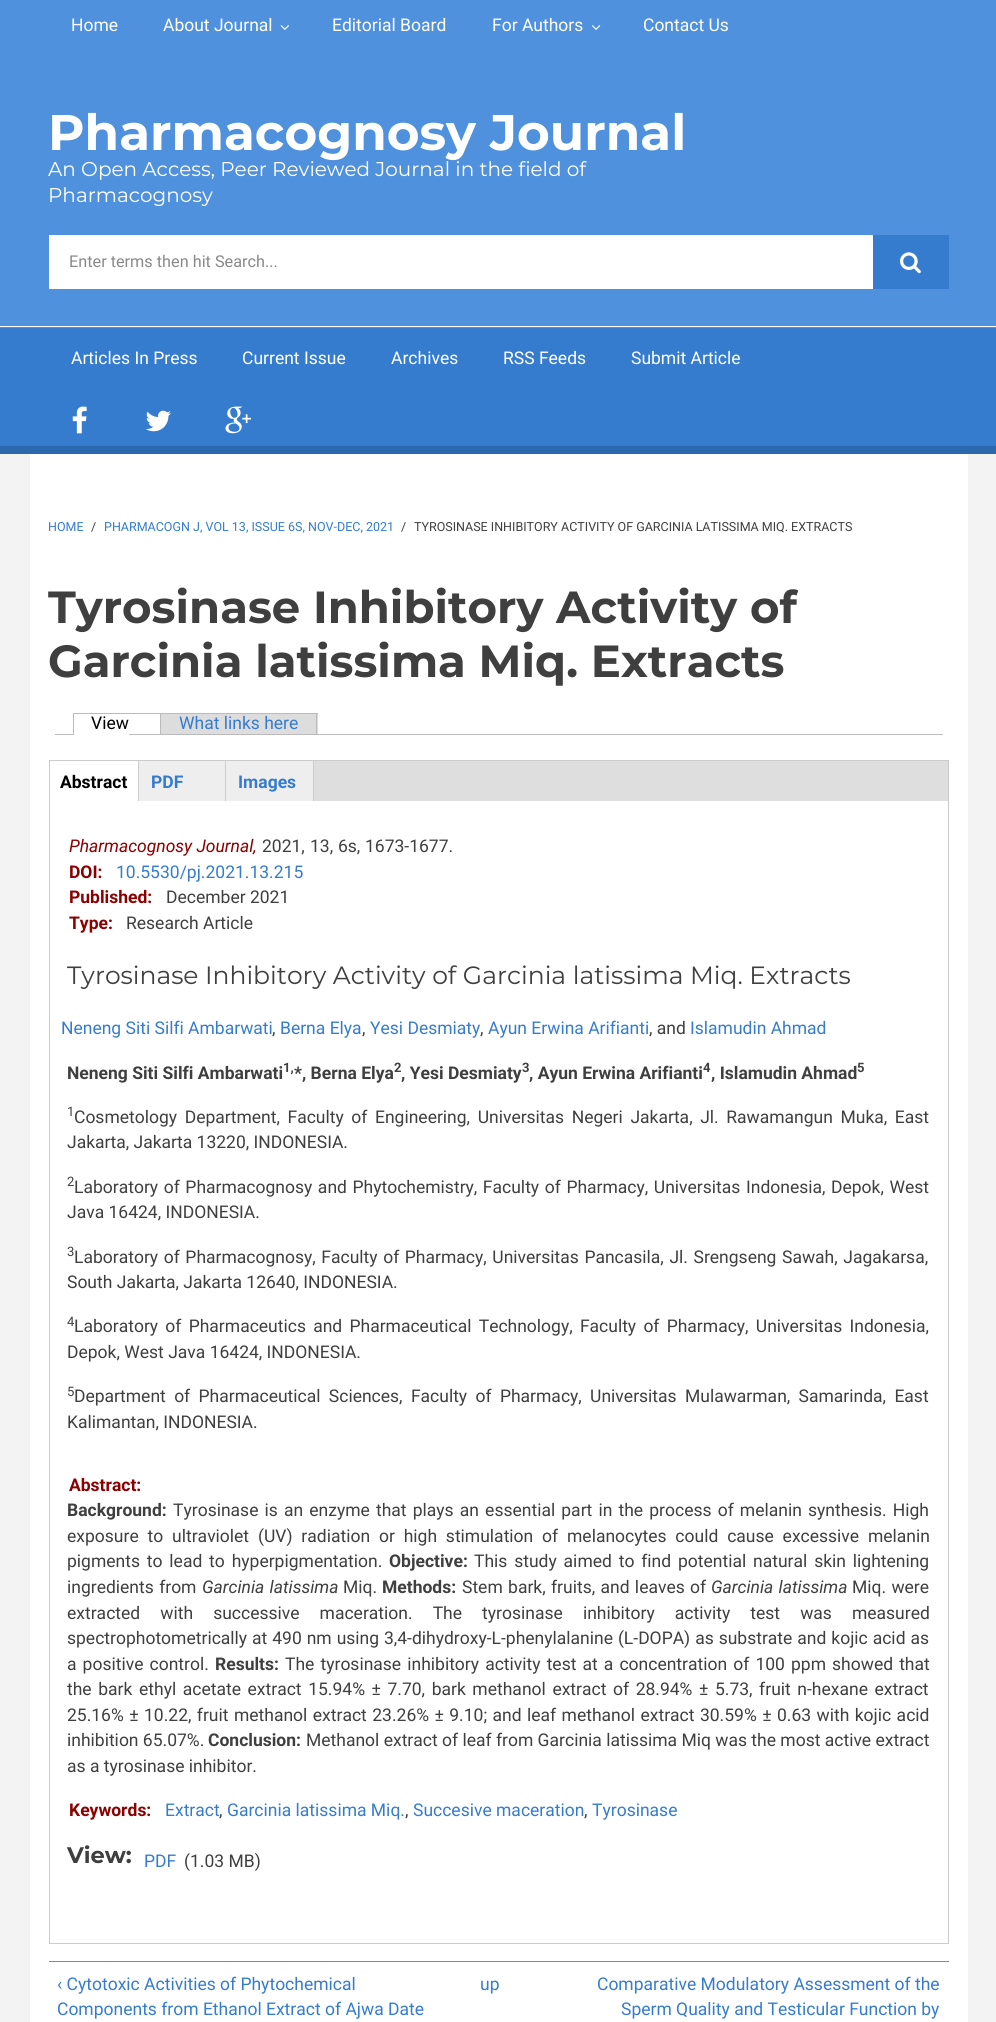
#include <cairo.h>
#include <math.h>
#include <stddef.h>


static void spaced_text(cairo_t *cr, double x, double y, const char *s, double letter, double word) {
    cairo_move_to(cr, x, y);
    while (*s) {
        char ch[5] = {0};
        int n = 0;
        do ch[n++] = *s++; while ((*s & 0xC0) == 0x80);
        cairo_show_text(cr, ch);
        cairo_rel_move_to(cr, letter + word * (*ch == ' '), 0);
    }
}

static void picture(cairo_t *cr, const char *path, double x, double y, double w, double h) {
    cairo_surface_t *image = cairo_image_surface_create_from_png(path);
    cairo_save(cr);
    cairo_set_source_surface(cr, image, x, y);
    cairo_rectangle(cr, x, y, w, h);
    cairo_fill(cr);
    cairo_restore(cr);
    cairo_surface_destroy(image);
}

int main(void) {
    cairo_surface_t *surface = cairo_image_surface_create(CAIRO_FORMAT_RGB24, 996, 2022);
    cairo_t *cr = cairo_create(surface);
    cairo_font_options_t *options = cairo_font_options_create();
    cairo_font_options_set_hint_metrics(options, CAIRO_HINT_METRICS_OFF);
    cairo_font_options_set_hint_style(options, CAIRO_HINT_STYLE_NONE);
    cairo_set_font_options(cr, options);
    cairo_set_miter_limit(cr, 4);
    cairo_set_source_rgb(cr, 0.953, 0.953, 0.953);
    cairo_paint(cr);
    cairo_set_source_rgb(cr, 0.31, 0.569, 0.867);
    cairo_rectangle(cr, 0, 0, 996, 328);
    cairo_fill(cr);
    cairo_select_font_face(cr, "Roboto", CAIRO_FONT_SLANT_NORMAL, CAIRO_FONT_WEIGHT_NORMAL);
    cairo_set_font_size(cr, 17.5);
    cairo_set_source_rgb(cr, 1, 1, 1);
    cairo_move_to(cr, 71, 31);
    cairo_show_text(cr, "Home");
    cairo_move_to(cr, 163, 31);
    cairo_show_text(cr, "About Journal");
    picture(cr, "img1.png", 280, 25, 9, 5);
    cairo_move_to(cr, 332, 31);
    cairo_show_text(cr, "Editorial Board");
    cairo_move_to(cr, 492, 31);
    cairo_show_text(cr, "For Authors");
    picture(cr, "img2.png", 591, 25, 10, 5);
    cairo_move_to(cr, 643, 31);
    cairo_show_text(cr, "Contact Us");
    cairo_rectangle(cr, 0, 326, 996, 1);
    cairo_fill(cr);
    cairo_select_font_face(cr, "Montserrat", CAIRO_FONT_SLANT_NORMAL, CAIRO_FONT_WEIGHT_BOLD);
    cairo_set_font_size(cr, 50);
    cairo_move_to(cr, 48, 150);
    cairo_show_text(cr, "Pharmacognosy Journal");
    cairo_select_font_face(cr, "Montserrat", CAIRO_FONT_SLANT_NORMAL, CAIRO_FONT_WEIGHT_NORMAL);
    cairo_set_font_size(cr, 20);
    cairo_move_to(cr, 48, 176);
    cairo_show_text(cr, "An Open Access, Peer Reviewed Journal in the field of");
    cairo_move_to(cr, 48, 202);
    cairo_show_text(cr, "Pharmacognosy");
    cairo_rectangle(cr, 49, 235, 824, 54);
    cairo_fill(cr);
    cairo_select_font_face(cr, "Roboto", CAIRO_FONT_SLANT_NORMAL, CAIRO_FONT_WEIGHT_NORMAL);
    cairo_set_font_size(cr, 16.25);
    cairo_set_source_rgb(cr, 0.537, 0.537, 0.537);
    cairo_move_to(cr, 69, 267);
    cairo_show_text(cr, "Enter terms then hit Search...");
    cairo_set_source_rgb(cr, 0.208, 0.486, 0.808);
    cairo_rectangle(cr, 873, 235, 76, 54);
    cairo_fill(cr);
    picture(cr, "img3.png", 900, 252, 21, 22);
    cairo_rectangle(cr, 0, 328, 996, 118);
    cairo_fill(cr);
    cairo_set_source_rgb(cr, 0.173, 0.408, 0.678);
    cairo_rectangle(cr, 0, 446, 996, 8);
    cairo_fill(cr);
    cairo_set_font_size(cr, 17.5);
    cairo_set_source_rgb(cr, 1, 1, 1);
    cairo_move_to(cr, 71, 364);
    cairo_show_text(cr, "Articles In Press");
    cairo_move_to(cr, 242, 364);
    cairo_show_text(cr, "Current Issue");
    cairo_move_to(cr, 391, 364);
    cairo_show_text(cr, "Archives");
    cairo_move_to(cr, 503, 364);
    cairo_show_text(cr, "RSS Feeds");
    cairo_move_to(cr, 631, 364);
    cairo_show_text(cr, "Submit Article");
    picture(cr, "img4.png", 72, 406, 15, 28);
    picture(cr, "img5.png", 146, 410, 25, 22);
    picture(cr, "img6.png", 225, 406, 26, 28);
    cairo_rectangle(cr, 30, 454, 938, 1568);
    cairo_fill(cr);
    cairo_set_font_size(cr, 12.5);
    cairo_set_source_rgb(cr, 0.208, 0.486, 0.808);
    cairo_move_to(cr, 48, 531);
    cairo_show_text(cr, "HOME");
    cairo_set_source_rgb(cr, 0.247, 0.247, 0.247);
    cairo_move_to(cr, 91, 531);
    cairo_show_text(cr, "/");
    cairo_set_source_rgb(cr, 0.208, 0.486, 0.808);
    cairo_move_to(cr, 104, 531);
    cairo_show_text(cr, "PHARMACOGN J, VOL 13, ISSUE 6S, NOV-DEC, 2021");
    cairo_set_source_rgb(cr, 0.247, 0.247, 0.247);
    cairo_move_to(cr, 401, 531);
    cairo_show_text(cr, "/");
    cairo_move_to(cr, 414, 531);
    cairo_show_text(cr, "TYROSINASE INHIBITORY ACTIVITY OF GARCINIA LATISSIMA MIQ. EXTRACTS");
    cairo_select_font_face(cr, "Montserrat", CAIRO_FONT_SLANT_NORMAL, CAIRO_FONT_WEIGHT_BOLD);
    cairo_set_font_size(cr, 45);
    cairo_move_to(cr, 48, 623);
    cairo_show_text(cr, "Tyrosinase Inhibitory Activity of");
    cairo_move_to(cr, 48, 677);
    cairo_show_text(cr, "Garcinia latissima Miq. Extracts");
    cairo_set_source_rgb(cr, 0.733, 0.733, 0.733);
    cairo_rectangle(cr, 55, 734, 888, 1);
    cairo_fill(cr);
    cairo_select_font_face(cr, "Roboto", CAIRO_FONT_SLANT_NORMAL, CAIRO_FONT_WEIGHT_NORMAL);
    cairo_set_font_size(cr, 17.5);
    cairo_set_source_rgb(cr, 0, 0, 0);
    cairo_move_to(cr, 91, 729);
    cairo_show_text(cr, "View");
    cairo_set_source_rgb(cr, 1, 1, 1);
    cairo_rectangle(cr, 74, 734, 55, 1);
    cairo_fill(cr);
    cairo_set_source_rgb(cr, 0.733, 0.733, 0.733);
    cairo_rectangle(cr, 73, 713, 245, 1);
    cairo_fill(cr);
    cairo_rectangle(cr, 73, 713, 1, 22);
    cairo_fill(cr);
    cairo_set_source_rgb(cr, 0.867, 0.867, 0.867);
    cairo_rectangle(cr, 161, 714, 157, 20);
    cairo_fill(cr);
    cairo_set_source_rgb(cr, 0.208, 0.486, 0.808);
    cairo_move_to(cr, 179, 729);
    cairo_show_text(cr, "What links here");
    cairo_set_source_rgb(cr, 0.733, 0.733, 0.733);
    cairo_rectangle(cr, 316, 713, 1, 21);
    cairo_fill(cr);
    cairo_rectangle(cr, 160, 713, 1, 21);
    cairo_fill(cr);
    cairo_rectangle(cr, 49.5, 760.5, 899, 1183);
    cairo_set_source_rgb(cr, 0.8, 0.8, 0.8);
    cairo_set_line_width(cr, 1);
    cairo_stroke(cr);
    cairo_set_source_rgb(cr, 0.871, 0.871, 0.871);
    cairo_rectangle(cr, 314, 761, 634, 40);
    cairo_fill(cr);
    cairo_set_source_rgb(cr, 0.8, 0.8, 0.8);
    cairo_rectangle(cr, 138, 761, 1, 40);
    cairo_fill(cr);
    cairo_select_font_face(cr, "Roboto", CAIRO_FONT_SLANT_NORMAL, CAIRO_FONT_WEIGHT_BOLD);
    cairo_set_source_rgb(cr, 0, 0, 0);
    cairo_move_to(cr, 60, 788);
    cairo_show_text(cr, "Abstract");
    cairo_set_source_rgb(cr, 0.933, 0.933, 0.933);
    cairo_rectangle(cr, 139, 761, 86, 40);
    cairo_fill(cr);
    cairo_set_source_rgb(cr, 0.8, 0.8, 0.8);
    cairo_rectangle(cr, 225, 761, 1, 40);
    cairo_fill(cr);
    cairo_set_source_rgb(cr, 0.208, 0.486, 0.808);
    cairo_move_to(cr, 151, 788);
    cairo_show_text(cr, "PDF");
    cairo_set_source_rgb(cr, 0.933, 0.933, 0.933);
    cairo_rectangle(cr, 226, 761, 87, 40);
    cairo_fill(cr);
    cairo_set_source_rgb(cr, 0.8, 0.8, 0.8);
    cairo_rectangle(cr, 313, 761, 1, 40);
    cairo_fill(cr);
    cairo_set_source_rgb(cr, 0.208, 0.486, 0.808);
    cairo_move_to(cr, 238, 788);
    cairo_show_text(cr, "Images");
    cairo_select_font_face(cr, "Roboto", CAIRO_FONT_SLANT_ITALIC, CAIRO_FONT_WEIGHT_NORMAL);
    cairo_set_source_rgb(cr, 0.545, 0, 0);
    cairo_move_to(cr, 69, 852);
    cairo_show_text(cr, "Pharmacognosy Journal,");
    cairo_select_font_face(cr, "Roboto", CAIRO_FONT_SLANT_NORMAL, CAIRO_FONT_WEIGHT_NORMAL);
    cairo_set_source_rgb(cr, 0.247, 0.247, 0.247);
    cairo_move_to(cr, 262, 852);
    cairo_show_text(cr, "2021,");
    cairo_move_to(cr, 310, 852);
    cairo_show_text(cr, "13,");
    cairo_move_to(cr, 338, 852);
    cairo_show_text(cr, "6s,");
    cairo_move_to(cr, 365, 852);
    cairo_show_text(cr, "1673-1677.");
    cairo_select_font_face(cr, "Roboto", CAIRO_FONT_SLANT_NORMAL, CAIRO_FONT_WEIGHT_BOLD);
    cairo_set_source_rgb(cr, 0.545, 0, 0);
    cairo_move_to(cr, 69, 878);
    cairo_show_text(cr, "DOI:");
    cairo_select_font_face(cr, "Roboto", CAIRO_FONT_SLANT_NORMAL, CAIRO_FONT_WEIGHT_NORMAL);
    cairo_set_source_rgb(cr, 0.208, 0.486, 0.808);
    cairo_move_to(cr, 116, 878);
    cairo_show_text(cr, "10.5530/pj.2021.13.215");
    cairo_select_font_face(cr, "Roboto", CAIRO_FONT_SLANT_NORMAL, CAIRO_FONT_WEIGHT_BOLD);
    cairo_set_source_rgb(cr, 0.545, 0, 0);
    cairo_move_to(cr, 69, 903);
    cairo_show_text(cr, "Published:");
    cairo_select_font_face(cr, "Roboto", CAIRO_FONT_SLANT_NORMAL, CAIRO_FONT_WEIGHT_NORMAL);
    cairo_set_source_rgb(cr, 0.247, 0.247, 0.247);
    cairo_move_to(cr, 166, 903);
    cairo_show_text(cr, "December 2021");
    cairo_select_font_face(cr, "Roboto", CAIRO_FONT_SLANT_NORMAL, CAIRO_FONT_WEIGHT_BOLD);
    cairo_set_source_rgb(cr, 0.545, 0, 0);
    cairo_move_to(cr, 69, 929);
    cairo_show_text(cr, "Type:");
    cairo_select_font_face(cr, "Roboto", CAIRO_FONT_SLANT_NORMAL, CAIRO_FONT_WEIGHT_NORMAL);
    cairo_set_source_rgb(cr, 0.247, 0.247, 0.247);
    cairo_move_to(cr, 126, 929);
    cairo_show_text(cr, "Research Article");
    cairo_select_font_face(cr, "Montserrat", CAIRO_FONT_SLANT_NORMAL, CAIRO_FONT_WEIGHT_NORMAL);
    cairo_set_font_size(cr, 25);
    cairo_move_to(cr, 67, 984);
    cairo_show_text(cr, "Tyrosinase Inhibitory Activity of Garcinia latissima Miq. Extracts");
    cairo_select_font_face(cr, "Roboto", CAIRO_FONT_SLANT_NORMAL, CAIRO_FONT_WEIGHT_NORMAL);
    cairo_set_font_size(cr, 17.5);
    cairo_set_source_rgb(cr, 0.208, 0.486, 0.808);
    cairo_move_to(cr, 61, 1034);
    cairo_show_text(cr, "Neneng Siti Silfi Ambarwati");
    cairo_set_source_rgb(cr, 0.247, 0.247, 0.247);
    cairo_move_to(cr, 272, 1034);
    cairo_show_text(cr, ",");
    cairo_set_source_rgb(cr, 0.208, 0.486, 0.808);
    cairo_move_to(cr, 280, 1034);
    cairo_show_text(cr, "Berna Elya");
    cairo_set_source_rgb(cr, 0.247, 0.247, 0.247);
    cairo_move_to(cr, 362, 1034);
    cairo_show_text(cr, ",");
    cairo_set_source_rgb(cr, 0.208, 0.486, 0.808);
    cairo_move_to(cr, 370, 1034);
    cairo_show_text(cr, "Yesi Desmiaty");
    cairo_set_source_rgb(cr, 0.247, 0.247, 0.247);
    cairo_move_to(cr, 480, 1034);
    cairo_show_text(cr, ",");
    cairo_set_source_rgb(cr, 0.208, 0.486, 0.808);
    cairo_move_to(cr, 488, 1034);
    cairo_show_text(cr, "Ayun Erwina Arifianti");
    cairo_set_source_rgb(cr, 0.247, 0.247, 0.247);
    cairo_move_to(cr, 649, 1034);
    cairo_show_text(cr, ", and");
    cairo_set_source_rgb(cr, 0.208, 0.486, 0.808);
    cairo_move_to(cr, 690, 1034);
    cairo_show_text(cr, "Islamudin Ahmad");
    cairo_select_font_face(cr, "Roboto", CAIRO_FONT_SLANT_NORMAL, CAIRO_FONT_WEIGHT_BOLD);
    cairo_set_source_rgb(cr, 0.247, 0.247, 0.247);
    cairo_move_to(cr, 67, 1079);
    cairo_show_text(cr, "Neneng Siti Silfi Ambarwati");
    cairo_set_font_size(cr, 13);
    cairo_move_to(cr, 283, 1072);
    cairo_show_text(cr, "1,");
    cairo_set_font_size(cr, 17.5);
    cairo_move_to(cr, 294, 1079);
    cairo_show_text(cr, "*, Berna Elya");
    cairo_set_font_size(cr, 13);
    cairo_move_to(cr, 394, 1072);
    cairo_show_text(cr, "2");
    cairo_set_font_size(cr, 17.5);
    cairo_move_to(cr, 401, 1079);
    cairo_show_text(cr, ", Yesi Desmiaty");
    cairo_set_font_size(cr, 13);
    cairo_move_to(cr, 522, 1072);
    cairo_show_text(cr, "3");
    cairo_set_font_size(cr, 17.5);
    cairo_move_to(cr, 529, 1079);
    cairo_show_text(cr, ", Ayun Erwina Arifianti");
    cairo_set_font_size(cr, 13);
    cairo_move_to(cr, 703, 1072);
    cairo_show_text(cr, "4");
    cairo_set_font_size(cr, 17.5);
    cairo_move_to(cr, 711, 1079);
    cairo_show_text(cr, ", Islamudin Ahmad");
    cairo_set_font_size(cr, 13);
    cairo_move_to(cr, 857, 1072);
    cairo_show_text(cr, "5");
    cairo_select_font_face(cr, "Roboto", CAIRO_FONT_SLANT_NORMAL, CAIRO_FONT_WEIGHT_NORMAL);
    cairo_move_to(cr, 67, 1116);
    cairo_show_text(cr, "1");
    cairo_set_font_size(cr, 17.5);
    spaced_text(cr, 74, 1123, "Cosmetology Department, Faculty of Engineering, Universitas Negeri Jakarta, Jl. Rawamangun Muka, East", 0, 3.25);
    cairo_move_to(cr, 67, 1148);
    cairo_show_text(cr, "Jakarta, Jakarta 13220, INDONESIA.");
    cairo_set_font_size(cr, 13);
    cairo_move_to(cr, 67, 1186);
    cairo_show_text(cr, "2");
    cairo_set_font_size(cr, 17.5);
    spaced_text(cr, 74, 1193, "Laboratory of Pharmacognosy and Phytochemistry, Faculty of Pharmacy, Universitas Indonesia, Depok, West", 0, 1.25);
    cairo_move_to(cr, 67, 1218);
    cairo_show_text(cr, "Java 16424, INDONESIA.");
    cairo_set_font_size(cr, 13);
    cairo_move_to(cr, 67, 1256);
    cairo_show_text(cr, "3");
    cairo_set_font_size(cr, 17.5);
    spaced_text(cr, 74, 1263, "Laboratory of Pharmacognosy, Faculty of Pharmacy, Universitas Pancasila, Jl. Srengseng Sawah, Jagakarsa,", 0, 1.25);
    cairo_move_to(cr, 67, 1288);
    cairo_show_text(cr, "South Jakarta, Jakarta 12640, INDONESIA.");
    cairo_set_font_size(cr, 13);
    cairo_move_to(cr, 67, 1326);
    cairo_show_text(cr, "4");
    cairo_set_font_size(cr, 17.5);
    spaced_text(cr, 74, 1332, "Laboratory of Pharmaceutics and Pharmaceutical Technology, Faculty of Pharmacy, Universitas Indonesia,", 0, 2.9);
    cairo_move_to(cr, 67, 1358);
    cairo_show_text(cr, "Depok, West Java 16424, INDONESIA.");
    cairo_set_font_size(cr, 13);
    cairo_move_to(cr, 67, 1396);
    cairo_show_text(cr, "5");
    cairo_set_font_size(cr, 17.5);
    spaced_text(cr, 74, 1402, "Department of Pharmaceutical Sciences, Faculty of Pharmacy, Universitas Mulawarman, Samarinda, East", 0, 4);
    cairo_move_to(cr, 67, 1428);
    cairo_show_text(cr, "Kalimantan, INDONESIA.");
    cairo_select_font_face(cr, "Roboto", CAIRO_FONT_SLANT_NORMAL, CAIRO_FONT_WEIGHT_BOLD);
    cairo_set_source_rgb(cr, 0.545, 0, 0);
    cairo_move_to(cr, 69, 1491);
    cairo_show_text(cr, "Abstract:");
    cairo_set_source_rgb(cr, 0.247, 0.247, 0.247);
    cairo_move_to(cr, 67, 1516);
    cairo_show_text(cr, "Background:");
    cairo_select_font_face(cr, "Roboto", CAIRO_FONT_SLANT_NORMAL, CAIRO_FONT_WEIGHT_NORMAL);
    spaced_text(cr, 173, 1516, "Tyrosinase is an enzyme that plays an essential part in the process of melanin synthesis. High", 0, 1.8);
    spaced_text(cr, 67, 1542, "exposure to ultraviolet (UV) radiation or high stimulation of melanocytes could cause excessive melanin", 0, 4.5);
    spaced_text(cr, 67, 1567, "pigments to lead to hyperpigmentation.", 0, 2.5);
    cairo_select_font_face(cr, "Roboto", CAIRO_FONT_SLANT_NORMAL, CAIRO_FONT_WEIGHT_BOLD);
    cairo_move_to(cr, 389, 1567);
    cairo_show_text(cr, "Objective:");
    cairo_select_font_face(cr, "Roboto", CAIRO_FONT_SLANT_NORMAL, CAIRO_FONT_WEIGHT_NORMAL);
    spaced_text(cr, 474, 1567, "This study aimed to find potential natural skin lightening", 0, 2.5);
    spaced_text(cr, 67, 1593, "ingredients from", 0, 1);
    cairo_select_font_face(cr, "Roboto", CAIRO_FONT_SLANT_ITALIC, CAIRO_FONT_WEIGHT_NORMAL);
    spaced_text(cr, 202, 1593, "Garcinia latissima", 0, 1);
    cairo_select_font_face(cr, "Roboto", CAIRO_FONT_SLANT_NORMAL, CAIRO_FONT_WEIGHT_NORMAL);
    cairo_move_to(cr, 343, 1593);
    cairo_show_text(cr, "Miq.");
    cairo_select_font_face(cr, "Roboto", CAIRO_FONT_SLANT_NORMAL, CAIRO_FONT_WEIGHT_BOLD);
    cairo_move_to(cr, 382, 1593);
    cairo_show_text(cr, "Methods:");
    cairo_select_font_face(cr, "Roboto", CAIRO_FONT_SLANT_NORMAL, CAIRO_FONT_WEIGHT_NORMAL);
    spaced_text(cr, 462, 1593, "Stem bark, fruits, and leaves of", 0, 1);
    cairo_select_font_face(cr, "Roboto", CAIRO_FONT_SLANT_ITALIC, CAIRO_FONT_WEIGHT_NORMAL);
    spaced_text(cr, 711, 1593, "Garcinia latissima", 0, 1);
    cairo_select_font_face(cr, "Roboto", CAIRO_FONT_SLANT_NORMAL, CAIRO_FONT_WEIGHT_NORMAL);
    spaced_text(cr, 852, 1593, "Miq. were", 0, 1);
    spaced_text(cr, 67, 1619, "extracted with successive maceration. The tyrosinase inhibitory activity test was measured", 0, 15.75);
    spaced_text(cr, 67, 1644, "spectrophotometrically at 490 nm using 3,4-dihydroxy-L-phenylalanine (L-DOPA) as substrate and kojic acid as", 0, 0.6);
    spaced_text(cr, 67, 1670, "a positive control.", 0, 1.75);
    cairo_select_font_face(cr, "Roboto", CAIRO_FONT_SLANT_NORMAL, CAIRO_FONT_WEIGHT_BOLD);
    cairo_move_to(cr, 215, 1670);
    cairo_show_text(cr, "Results:");
    cairo_select_font_face(cr, "Roboto", CAIRO_FONT_SLANT_NORMAL, CAIRO_FONT_WEIGHT_NORMAL);
    spaced_text(cr, 285, 1670, "The tyrosinase inhibitory activity test at a concentration of 100 ppm showed that", 0, 1.75);
    spaced_text(cr, 67, 1695, "the bark ethyl acetate extract 15.94% ± 7.70, bark methanol extract of 28.94% ± 5.73, fruit n-hexane extract", 0, 2.25);
    spaced_text(cr, 67, 1721, "25.16% ± 10.22, fruit methanol extract 23.26% ± 9.10; and leaf methanol extract 30.59% ± 0.63 with kojic acid", 0, 1.1);
    cairo_move_to(cr, 67, 1746);
    cairo_show_text(cr, "inhibition 65.07%.");
    cairo_select_font_face(cr, "Roboto", CAIRO_FONT_SLANT_NORMAL, CAIRO_FONT_WEIGHT_BOLD);
    cairo_move_to(cr, 208, 1746);
    cairo_show_text(cr, "Conclusion:");
    cairo_select_font_face(cr, "Roboto", CAIRO_FONT_SLANT_NORMAL, CAIRO_FONT_WEIGHT_NORMAL);
    cairo_move_to(cr, 306, 1746);
    cairo_show_text(cr, "Methanol extract of leaf from Garcinia latissima Miq was the most active extract");
    cairo_move_to(cr, 67, 1772);
    cairo_show_text(cr, "as a tyrosinase inhibitor.");
    cairo_select_font_face(cr, "Roboto", CAIRO_FONT_SLANT_NORMAL, CAIRO_FONT_WEIGHT_BOLD);
    cairo_set_source_rgb(cr, 0.545, 0, 0);
    cairo_move_to(cr, 69, 1816);
    cairo_show_text(cr, "Keywords:");
    cairo_select_font_face(cr, "Roboto", CAIRO_FONT_SLANT_NORMAL, CAIRO_FONT_WEIGHT_NORMAL);
    cairo_set_source_rgb(cr, 0.208, 0.486, 0.808);
    cairo_move_to(cr, 165, 1816);
    cairo_show_text(cr, "Extract");
    cairo_set_source_rgb(cr, 0.247, 0.247, 0.247);
    cairo_move_to(cr, 219, 1816);
    cairo_show_text(cr, ",");
    cairo_set_source_rgb(cr, 0.208, 0.486, 0.808);
    cairo_move_to(cr, 227, 1816);
    cairo_show_text(cr, "Garcinia latissima Miq.");
    cairo_set_source_rgb(cr, 0.247, 0.247, 0.247);
    cairo_move_to(cr, 405, 1816);
    cairo_show_text(cr, ",");
    cairo_set_source_rgb(cr, 0.208, 0.486, 0.808);
    cairo_move_to(cr, 413, 1816);
    cairo_show_text(cr, "Succesive maceration");
    cairo_set_source_rgb(cr, 0.247, 0.247, 0.247);
    cairo_move_to(cr, 584, 1816);
    cairo_show_text(cr, ",");
    cairo_set_source_rgb(cr, 0.208, 0.486, 0.808);
    cairo_move_to(cr, 592, 1816);
    cairo_show_text(cr, "Tyrosinase");
    cairo_select_font_face(cr, "Montserrat", CAIRO_FONT_SLANT_NORMAL, CAIRO_FONT_WEIGHT_BOLD);
    cairo_set_font_size(cr, 22.5);
    cairo_set_source_rgb(cr, 0.247, 0.247, 0.247);
    cairo_move_to(cr, 67, 1863);
    cairo_show_text(cr, "View:");
    cairo_select_font_face(cr, "Roboto", CAIRO_FONT_SLANT_NORMAL, CAIRO_FONT_WEIGHT_NORMAL);
    cairo_set_font_size(cr, 17.5);
    cairo_set_source_rgb(cr, 0.208, 0.486, 0.808);
    cairo_move_to(cr, 144, 1867);
    cairo_show_text(cr, "PDF");
    cairo_set_source_rgb(cr, 0.247, 0.247, 0.247);
    cairo_move_to(cr, 184, 1867);
    cairo_show_text(cr, "(1.03 MB)");
    cairo_set_source_rgb(cr, 0.533, 0.533, 0.533);
    cairo_rectangle(cr, 49, 1961, 900, 1);
    cairo_fill(cr);
    cairo_set_source_rgb(cr, 0.208, 0.486, 0.808);
    cairo_move_to(cr, 57, 1990);
    cairo_show_text(cr, "‹ Cytotoxic Activities of Phytochemical");
    cairo_move_to(cr, 57, 2015);
    cairo_show_text(cr, "Components from Ethanol Extract of Ajwa Date");
    cairo_move_to(cr, 480, 1990);
    cairo_show_text(cr, "up");
    cairo_move_to(cr, 597, 1990);
    cairo_show_text(cr, "Comparative Modulatory Assessment of the");
    cairo_move_to(cr, 621, 2015);
    cairo_show_text(cr, "Sperm Quality and Testicular Function by");
    cairo_surface_write_to_png(surface, "page.png");
    cairo_font_options_destroy(options);
    cairo_destroy(cr);
    cairo_surface_destroy(surface);
    return 0;
}
